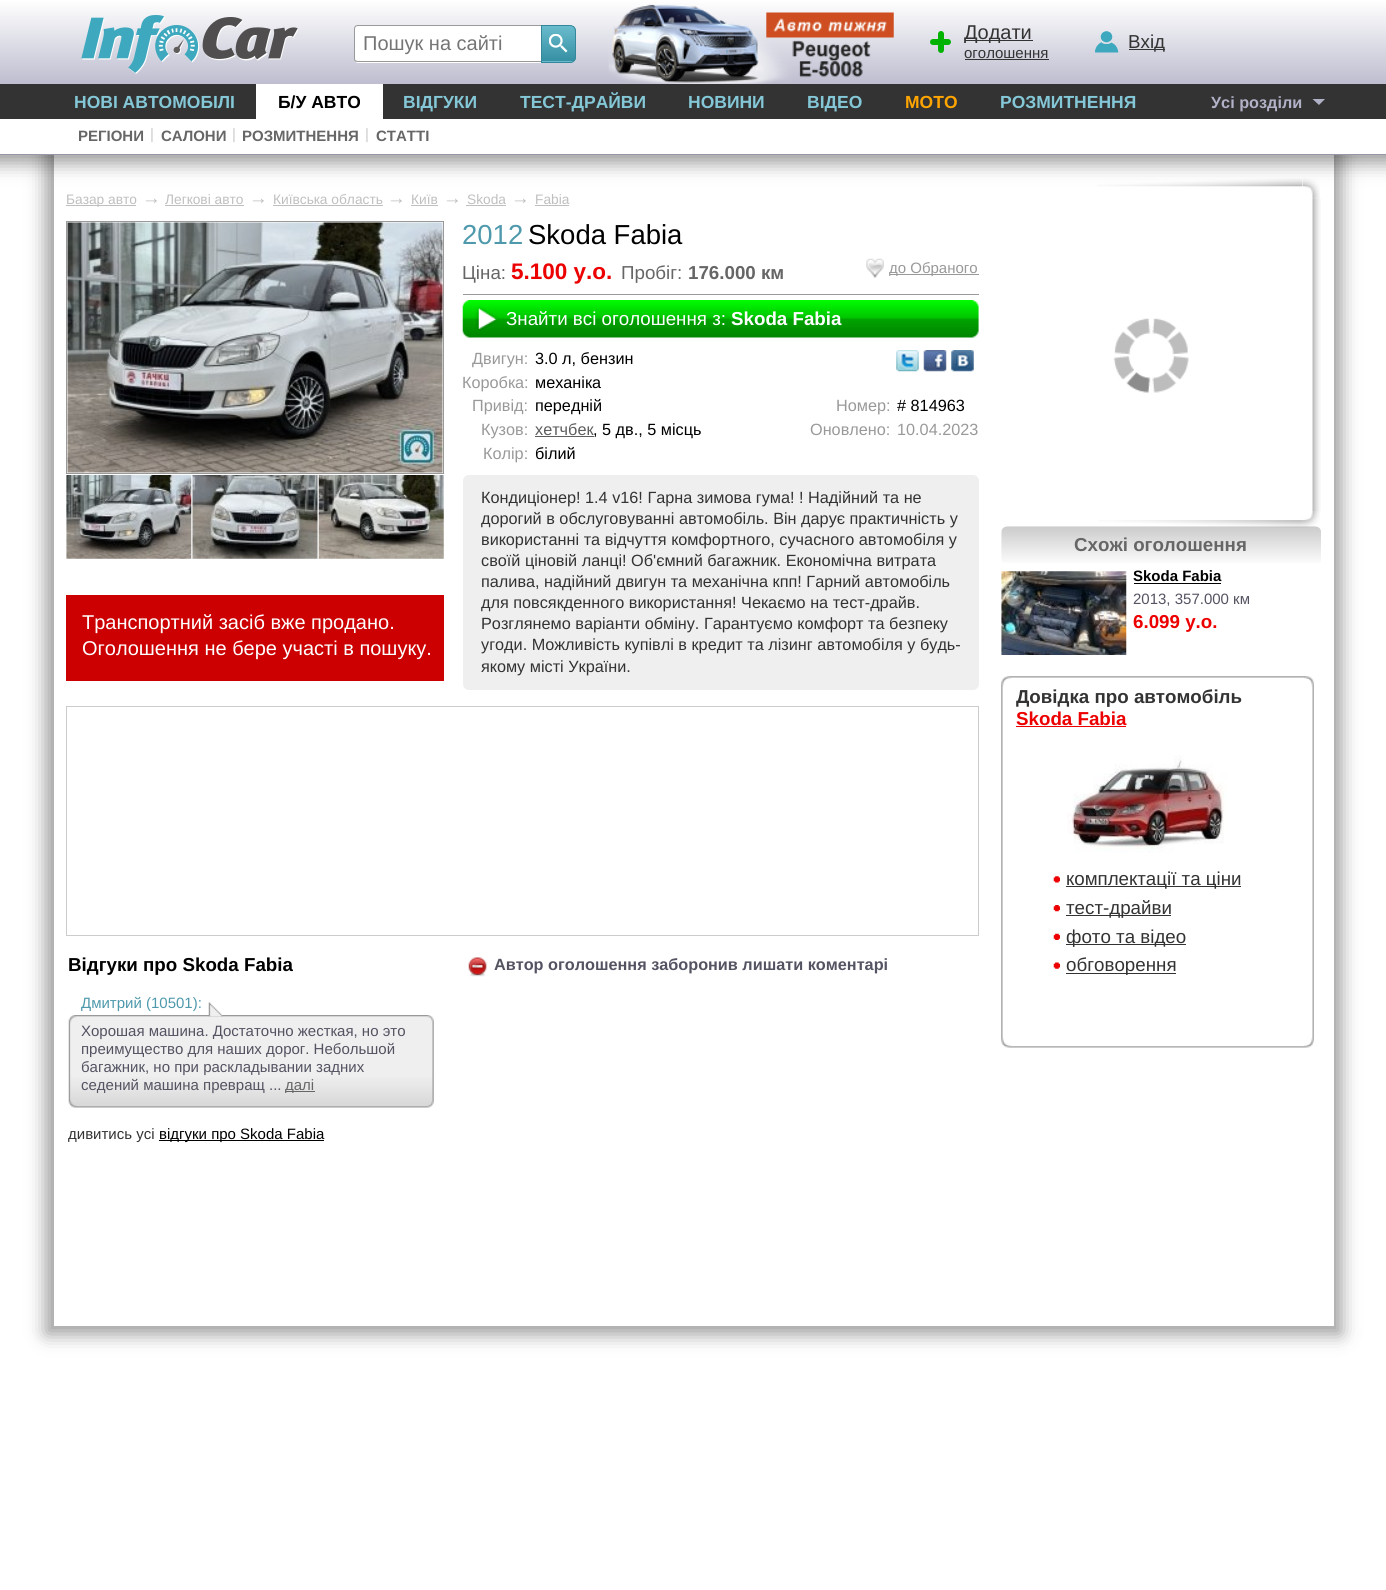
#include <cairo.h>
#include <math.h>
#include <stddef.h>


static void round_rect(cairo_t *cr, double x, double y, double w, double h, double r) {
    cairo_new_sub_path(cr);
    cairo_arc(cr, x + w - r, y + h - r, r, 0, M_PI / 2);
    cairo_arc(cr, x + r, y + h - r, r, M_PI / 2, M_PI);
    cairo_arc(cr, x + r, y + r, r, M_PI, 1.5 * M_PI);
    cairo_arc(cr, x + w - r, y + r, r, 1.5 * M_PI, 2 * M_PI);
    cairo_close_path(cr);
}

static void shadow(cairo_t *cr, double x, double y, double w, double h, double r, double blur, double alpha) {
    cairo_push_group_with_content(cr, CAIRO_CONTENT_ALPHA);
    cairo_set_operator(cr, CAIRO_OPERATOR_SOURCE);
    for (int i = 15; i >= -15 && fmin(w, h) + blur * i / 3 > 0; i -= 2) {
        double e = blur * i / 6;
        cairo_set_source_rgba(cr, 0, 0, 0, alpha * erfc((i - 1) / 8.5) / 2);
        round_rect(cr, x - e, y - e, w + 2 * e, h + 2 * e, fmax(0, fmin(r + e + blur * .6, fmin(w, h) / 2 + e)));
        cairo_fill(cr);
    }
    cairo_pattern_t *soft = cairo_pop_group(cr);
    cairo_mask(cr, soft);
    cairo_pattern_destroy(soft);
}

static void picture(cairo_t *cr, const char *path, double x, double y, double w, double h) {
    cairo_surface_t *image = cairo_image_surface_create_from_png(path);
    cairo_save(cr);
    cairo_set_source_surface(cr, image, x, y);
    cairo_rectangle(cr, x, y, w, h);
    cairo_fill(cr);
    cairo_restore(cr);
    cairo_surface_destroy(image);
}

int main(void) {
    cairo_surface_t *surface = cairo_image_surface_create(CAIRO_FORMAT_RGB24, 1386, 1590);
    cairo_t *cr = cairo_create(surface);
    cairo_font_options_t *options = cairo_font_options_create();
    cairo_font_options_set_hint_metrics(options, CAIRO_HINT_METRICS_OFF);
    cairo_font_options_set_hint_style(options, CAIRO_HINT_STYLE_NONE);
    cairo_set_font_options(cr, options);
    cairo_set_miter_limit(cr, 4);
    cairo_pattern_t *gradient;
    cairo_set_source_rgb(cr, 1, 1, 1);
    cairo_paint(cr);
    cairo_set_source_rgb(cr, 0, 0, 0);
    shadow(cr, 46, 148, 1295, 1186, 0, 9.5, 0.4);
    cairo_set_source_rgb(cr, 1, 1, 1);
    cairo_rectangle(cr, 54, 155, 1280, 1171);
    cairo_fill(cr);
    picture(cr, "img17.png", 1097, 178, 206, 9);
    picture(cr, "img20.png", 1312, 198, 9, 314);
    picture(cr, "img18.png", 1303, 178, 17, 21);
    cairo_set_source_rgb(cr, 0, 0, 0);
    shadow(cr, -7, -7, 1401, 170, 0, 9.5, 0.4);
    gradient = cairo_pattern_create_linear(693, 0, 693, 155);
    cairo_pattern_add_color_stop_rgba(gradient, 0, 1, 1, 1, 1);
    cairo_pattern_add_color_stop_rgba(gradient, 1, 0.525, 0.525, 0.659, 1);
    cairo_set_source(cr, gradient);
    cairo_pattern_destroy(gradient);
    cairo_rectangle(cr, 0, 0, 1386, 84);
    cairo_fill(cr);
    cairo_set_source_rgb(cr, 1, 1, 1);
    cairo_new_path(cr);
    cairo_move_to(cr, 358, 25);
    cairo_line_to(cr, 541, 25);
    cairo_line_to(cr, 541, 63);
    cairo_line_to(cr, 358, 63);
    cairo_curve_to(cr, 356, 63, 354, 61, 354, 59);
    cairo_line_to(cr, 354, 29);
    cairo_curve_to(cr, 354, 27, 356, 25, 358, 25);
    cairo_close_path(cr);
    cairo_fill(cr);
    cairo_set_source_rgb(cr, 0.6, 0.6, 0.6);
    cairo_set_fill_rule(cr, CAIRO_FILL_RULE_EVEN_ODD);
    cairo_new_path(cr);
    cairo_move_to(cr, 358, 25);
    cairo_line_to(cr, 541, 25);
    cairo_line_to(cr, 541, 62);
    cairo_line_to(cr, 358, 62);
    cairo_curve_to(cr, 355, 62, 354, 61, 354, 59);
    cairo_line_to(cr, 354, 29);
    cairo_curve_to(cr, 354, 27, 355, 25, 358, 25);
    cairo_close_path(cr);
    cairo_move_to(cr, 358, 26);
    cairo_line_to(cr, 541, 26);
    cairo_line_to(cr, 541, 61);
    cairo_line_to(cr, 358, 61);
    cairo_curve_to(cr, 356, 61, 355, 60, 355, 59);
    cairo_line_to(cr, 355, 29);
    cairo_curve_to(cr, 355, 27, 356, 26, 358, 26);
    cairo_close_path(cr);
    cairo_fill(cr);
    cairo_select_font_face(cr, "Liberation Sans", CAIRO_FONT_SLANT_NORMAL, CAIRO_FONT_WEIGHT_NORMAL);
    cairo_set_font_size(cr, 20);
    cairo_set_source_rgb(cr, 0.459, 0.459, 0.459);
    cairo_move_to(cr, 363, 50);
    cairo_show_text(cr, "Пошук на сайті");
    cairo_save(cr);
    cairo_set_fill_rule(cr, CAIRO_FILL_RULE_WINDING);
    cairo_new_path(cr);
    cairo_move_to(cr, 541, 25);
    cairo_line_to(cr, 570, 25);
    cairo_curve_to(cr, 573.5, 25, 576, 27.5, 576, 31);
    cairo_line_to(cr, 576, 57);
    cairo_curve_to(cr, 576, 60.5, 573.5, 63, 570, 63);
    cairo_line_to(cr, 541, 63);
    cairo_close_path(cr);
    cairo_clip(cr);
    gradient = cairo_pattern_create_linear(559, 26, 559, 61);
    cairo_pattern_add_color_stop_rgba(gradient, 0, 0.412, 0.737, 0.804, 1);
    cairo_pattern_add_color_stop_rgba(gradient, 1, 0.212, 0.561, 0.639, 1);
    cairo_set_source(cr, gradient);
    cairo_pattern_destroy(gradient);
    cairo_rectangle(cr, 542, 26, 34, 35);
    cairo_fill(cr);
    gradient = cairo_pattern_create_linear(559, 61, 559, 96);
    cairo_pattern_add_color_stop_rgba(gradient, 0, 0.412, 0.737, 0.804, 1);
    cairo_pattern_add_color_stop_rgba(gradient, 1, 0.212, 0.561, 0.639, 1);
    cairo_set_source(cr, gradient);
    cairo_pattern_destroy(gradient);
    cairo_rectangle(cr, 541, 61, 35, 2);
    cairo_fill(cr);
    cairo_restore(cr);
    cairo_new_path(cr);
    cairo_move_to(cr, 541.5, 25.5);
    cairo_line_to(cr, 570, 25.5);
    cairo_curve_to(cr, 573, 25.5, 575.5, 28, 575.5, 31);
    cairo_line_to(cr, 575.5, 57);
    cairo_curve_to(cr, 575.5, 60, 573, 62.5, 570, 62.5);
    cairo_line_to(cr, 541.5, 62.5);
    cairo_close_path(cr);
    cairo_set_source_rgb(cr, 0.204, 0.533, 0.604);
    cairo_set_line_width(cr, 1);
    cairo_stroke(cr);
    picture(cr, "img1.png", 549, 34, 19, 19);
    picture(cr, "img2.png", 81, 15, 218, 59);
    picture(cr, "img3.png", 608, 4, 286, 80);
    cairo_set_source_rgb(cr, 0, 0.702, 0);
    round_rect(cr, 930, 39, 21, 6, 3);
    cairo_fill(cr);
    round_rect(cr, 938, 31, 6, 22, 3);
    cairo_fill(cr);
    cairo_set_source_rgb(cr, 0.2, 0.2, 0.2);
    cairo_rectangle(cr, 965, 40, 68, 1);
    cairo_fill(cr);
    cairo_move_to(cr, 964, 39);
    cairo_show_text(cr, "Додати");
    cairo_set_font_size(cr, 15);
    cairo_move_to(cr, 964, 58);
    cairo_show_text(cr, "оголошення");
    cairo_rectangle(cr, 965, 59, 84, 1);
    cairo_fill(cr);
    picture(cr, "img4.png", 1095, 31, 24, 22);
    cairo_rectangle(cr, 1129, 49, 36, 1);
    cairo_fill(cr);
    cairo_set_font_size(cr, 18.75);
    cairo_move_to(cr, 1128, 48);
    cairo_show_text(cr, "Вхід");
    cairo_rectangle(cr, 0, 84, 1386, 35);
    cairo_fill(cr);
    cairo_set_source_rgb(cr, 0.588, 0.588, 0.663);
    cairo_rectangle(cr, 0, 154, 1386, 1);
    cairo_fill(cr);
    cairo_select_font_face(cr, "Liberation Sans", CAIRO_FONT_SLANT_NORMAL, CAIRO_FONT_WEIGHT_BOLD);
    cairo_set_font_size(cr, 17.5);
    cairo_set_source_rgb(cr, 0.518, 0.784, 0.843);
    cairo_move_to(cr, 74, 108);
    cairo_show_text(cr, "НОВІ АВТОМОБІЛІ");
    cairo_set_source_rgb(cr, 1, 1, 1);
    cairo_rectangle(cr, 256, 84, 127, 35);
    cairo_fill(cr);
    cairo_set_source_rgb(cr, 0, 0, 0);
    cairo_move_to(cr, 278, 108);
    cairo_show_text(cr, "Б/У АВТО");
    cairo_set_source_rgb(cr, 0.518, 0.784, 0.843);
    cairo_move_to(cr, 403, 108);
    cairo_show_text(cr, "ВІДГУКИ");
    cairo_move_to(cr, 520, 108);
    cairo_show_text(cr, "ТЕСТ-ДРАЙВИ");
    cairo_move_to(cr, 688, 108);
    cairo_show_text(cr, "НОВИНИ");
    cairo_move_to(cr, 807, 108);
    cairo_show_text(cr, "ВІДЕО");
    cairo_set_source_rgb(cr, 1, 0.647, 0);
    cairo_move_to(cr, 905, 108);
    cairo_show_text(cr, "МОТО");
    cairo_set_source_rgb(cr, 0.518, 0.784, 0.843);
    cairo_move_to(cr, 1000, 108);
    cairo_show_text(cr, "РОЗМИТНЕННЯ");
    cairo_set_font_size(cr, 16.25);
    cairo_set_source_rgb(cr, 0.694, 0.694, 0.78);
    cairo_move_to(cr, 1211, 108);
    cairo_show_text(cr, "Усі розділи");
    cairo_set_source_rgb(cr, 0.69, 0.69, 0.776);
    cairo_set_fill_rule(cr, CAIRO_FILL_RULE_WINDING);
    cairo_new_path(cr);
    cairo_move_to(cr, 1312.5, 99);
    cairo_line_to(cr, 1325, 99);
    cairo_line_to(cr, 1319, 105);
    cairo_close_path(cr);
    cairo_fill(cr);
    cairo_set_source_rgb(cr, 1, 1, 1);
    cairo_rectangle(cr, 0, 119, 1386, 35);
    cairo_fill(cr);
    cairo_set_font_size(cr, 15);
    cairo_set_source_rgb(cr, 0.4, 0.4, 0.4);
    cairo_move_to(cr, 78, 141);
    cairo_show_text(cr, "РЕГІОНИ");
    cairo_select_font_face(cr, "Liberation Sans", CAIRO_FONT_SLANT_NORMAL, CAIRO_FONT_WEIGHT_NORMAL);
    cairo_set_source_rgb(cr, 0.8, 0.8, 0.8);
    cairo_move_to(cr, 150, 139);
    cairo_show_text(cr, "|");
    cairo_select_font_face(cr, "Liberation Sans", CAIRO_FONT_SLANT_NORMAL, CAIRO_FONT_WEIGHT_BOLD);
    cairo_set_source_rgb(cr, 0.4, 0.4, 0.4);
    cairo_move_to(cr, 161, 141);
    cairo_show_text(cr, "САЛОНИ");
    cairo_select_font_face(cr, "Liberation Sans", CAIRO_FONT_SLANT_NORMAL, CAIRO_FONT_WEIGHT_NORMAL);
    cairo_set_source_rgb(cr, 0.8, 0.8, 0.8);
    cairo_move_to(cr, 232, 139);
    cairo_show_text(cr, "|");
    cairo_select_font_face(cr, "Liberation Sans", CAIRO_FONT_SLANT_NORMAL, CAIRO_FONT_WEIGHT_BOLD);
    cairo_set_source_rgb(cr, 0.4, 0.4, 0.4);
    cairo_move_to(cr, 242, 141);
    cairo_show_text(cr, "РОЗМИТНЕННЯ");
    cairo_select_font_face(cr, "Liberation Sans", CAIRO_FONT_SLANT_NORMAL, CAIRO_FONT_WEIGHT_NORMAL);
    cairo_set_source_rgb(cr, 0.8, 0.8, 0.8);
    cairo_move_to(cr, 365, 139);
    cairo_show_text(cr, "|");
    cairo_select_font_face(cr, "Liberation Sans", CAIRO_FONT_SLANT_NORMAL, CAIRO_FONT_WEIGHT_BOLD);
    cairo_set_source_rgb(cr, 0.4, 0.4, 0.4);
    cairo_move_to(cr, 376, 141);
    cairo_show_text(cr, "СТАТТІ");
    cairo_set_source_rgb(cr, 0.749, 0.749, 0.749);
    cairo_rectangle(cr, 66, 205, 70, 1);
    cairo_fill(cr);
    cairo_select_font_face(cr, "Liberation Sans", CAIRO_FONT_SLANT_NORMAL, CAIRO_FONT_WEIGHT_NORMAL);
    cairo_set_font_size(cr, 13.75);
    cairo_move_to(cr, 66, 204);
    cairo_show_text(cr, "Базар авто");
    cairo_set_font_size(cr, 18.75);
    cairo_move_to(cr, 142, 204);
    cairo_show_text(cr, "→");
    cairo_set_font_size(cr, 13.75);
    cairo_move_to(cr, 165, 204);
    cairo_show_text(cr, "Легкові авто");
    cairo_rectangle(cr, 165, 205, 79, 1);
    cairo_fill(cr);
    cairo_set_font_size(cr, 18.75);
    cairo_move_to(cr, 249, 204);
    cairo_show_text(cr, "→");
    cairo_set_font_size(cr, 13.75);
    cairo_move_to(cr, 273, 204);
    cairo_show_text(cr, "Київська область");
    cairo_rectangle(cr, 273, 205, 110, 1);
    cairo_fill(cr);
    cairo_set_font_size(cr, 18.75);
    cairo_move_to(cr, 387, 204);
    cairo_show_text(cr, "→");
    cairo_set_font_size(cr, 13.75);
    cairo_move_to(cr, 411, 204);
    cairo_show_text(cr, "Київ");
    cairo_rectangle(cr, 411, 205, 27, 1);
    cairo_fill(cr);
    cairo_set_font_size(cr, 18.75);
    cairo_move_to(cr, 443, 204);
    cairo_show_text(cr, "→");
    cairo_set_font_size(cr, 13.75);
    cairo_move_to(cr, 467, 204);
    cairo_show_text(cr, "Skoda");
    cairo_rectangle(cr, 466, 205, 40, 1);
    cairo_fill(cr);
    cairo_set_font_size(cr, 18.75);
    cairo_move_to(cr, 511, 204);
    cairo_show_text(cr, "→");
    cairo_set_font_size(cr, 13.75);
    cairo_move_to(cr, 535, 204);
    cairo_show_text(cr, "Fabia");
    cairo_rectangle(cr, 535, 205, 34, 1);
    cairo_fill(cr);
    cairo_rectangle(cr, 66.5, 221.5, 377, 252);
    cairo_set_source_rgb(cr, 0.6, 0.6, 0.6);
    cairo_stroke(cr);
    picture(cr, "img5.png", 67, 222, 376, 251);
    picture(cr, "img6.png", 66, 475, 126, 84);
    picture(cr, "img7.png", 192, 475, 126, 84);
    picture(cr, "img8.png", 318, 475, 126, 84);
    cairo_set_source_rgb(cr, 0.8, 0, 0);
    cairo_rectangle(cr, 66, 595, 378, 86);
    cairo_fill(cr);
    cairo_set_font_size(cr, 20);
    cairo_set_source_rgb(cr, 1, 1, 1);
    cairo_move_to(cr, 82, 629);
    cairo_show_text(cr, "Транспортний засіб вже продано.");
    cairo_move_to(cr, 82, 655);
    cairo_show_text(cr, "Оголошення не бере участі в пошуку.");
    cairo_set_font_size(cr, 27.5);
    cairo_set_source_rgb(cr, 0.306, 0.6, 0.675);
    cairo_move_to(cr, 462, 244);
    cairo_show_text(cr, "2012");
    cairo_set_source_rgb(cr, 0, 0, 0);
    cairo_move_to(cr, 528, 244);
    cairo_show_text(cr, "Skoda Fabia");
    cairo_set_source_rgb(cr, 0.6, 0.6, 0.6);
    cairo_rectangle(cr, 463, 294, 516, 1);
    cairo_fill(cr);
    cairo_set_font_size(cr, 18.75);
    cairo_set_source_rgb(cr, 0.4, 0.4, 0.4);
    cairo_move_to(cr, 462, 279);
    cairo_show_text(cr, "Ціна:");
    cairo_select_font_face(cr, "Liberation Sans", CAIRO_FONT_SLANT_NORMAL, CAIRO_FONT_WEIGHT_BOLD);
    cairo_set_font_size(cr, 22.5);
    cairo_set_source_rgb(cr, 0.925, 0, 0);
    cairo_move_to(cr, 511, 279);
    cairo_show_text(cr, "5.100 у.о.");
    cairo_select_font_face(cr, "Liberation Sans", CAIRO_FONT_SLANT_NORMAL, CAIRO_FONT_WEIGHT_NORMAL);
    cairo_set_font_size(cr, 18.75);
    cairo_set_source_rgb(cr, 0.4, 0.4, 0.4);
    cairo_move_to(cr, 621, 279);
    cairo_show_text(cr, "Пробіг:");
    cairo_select_font_face(cr, "Liberation Sans", CAIRO_FONT_SLANT_NORMAL, CAIRO_FONT_WEIGHT_BOLD);
    cairo_move_to(cr, 688, 279);
    cairo_show_text(cr, "176.000 км");
    picture(cr, "img9.png", 866, 258, 18, 20);
    cairo_set_source_rgb(cr, 0.6, 0.6, 0.6);
    cairo_rectangle(cr, 890, 274, 89, 1);
    cairo_fill(cr);
    cairo_select_font_face(cr, "Liberation Sans", CAIRO_FONT_SLANT_NORMAL, CAIRO_FONT_WEIGHT_NORMAL);
    cairo_set_font_size(cr, 15);
    cairo_move_to(cr, 889, 273);
    cairo_show_text(cr, "до Обраного");
    picture(cr, "img10.png", 462, 300, 517, 38);
    cairo_set_font_size(cr, 18.75);
    cairo_set_source_rgb(cr, 1, 1, 1);
    cairo_move_to(cr, 506, 325);
    cairo_show_text(cr, "Знайти всі оголошення з:");
    cairo_select_font_face(cr, "Liberation Sans", CAIRO_FONT_SLANT_NORMAL, CAIRO_FONT_WEIGHT_BOLD);
    cairo_move_to(cr, 731, 325);
    cairo_show_text(cr, "Skoda Fabia");
    cairo_select_font_face(cr, "Liberation Sans", CAIRO_FONT_SLANT_NORMAL, CAIRO_FONT_WEIGHT_NORMAL);
    cairo_set_font_size(cr, 16.25);
    cairo_set_source_rgb(cr, 0.6, 0.6, 0.6);
    cairo_move_to(cr, 472, 364);
    cairo_show_text(cr, "Двигун:");
    cairo_set_source_rgb(cr, 0, 0, 0);
    cairo_move_to(cr, 535, 364);
    cairo_show_text(cr, "3.0 л, бензин");
    cairo_set_source_rgb(cr, 0.6, 0.6, 0.6);
    cairo_move_to(cr, 462, 388);
    cairo_show_text(cr, "Коробка:");
    cairo_set_source_rgb(cr, 0, 0, 0);
    cairo_move_to(cr, 535, 388);
    cairo_show_text(cr, "механіка");
    cairo_set_source_rgb(cr, 0.6, 0.6, 0.6);
    cairo_move_to(cr, 472, 411);
    cairo_show_text(cr, "Привід:");
    cairo_set_source_rgb(cr, 0, 0, 0);
    cairo_move_to(cr, 535, 411);
    cairo_show_text(cr, "передній");
    cairo_set_source_rgb(cr, 0.6, 0.6, 0.6);
    cairo_move_to(cr, 481, 435);
    cairo_show_text(cr, "Кузов:");
    cairo_set_source_rgb(cr, 0.373, 0.361, 0.361);
    cairo_move_to(cr, 535, 435);
    cairo_show_text(cr, "хетчбек");
    cairo_rectangle(cr, 535, 436, 59, 1);
    cairo_fill(cr);
    cairo_set_source_rgb(cr, 0, 0, 0);
    cairo_move_to(cr, 593, 435);
    cairo_show_text(cr, ", 5 дв., 5 місць");
    cairo_set_source_rgb(cr, 0.6, 0.6, 0.6);
    cairo_move_to(cr, 483, 459);
    cairo_show_text(cr, "Колір:");
    cairo_set_source_rgb(cr, 0, 0, 0);
    cairo_move_to(cr, 535, 459);
    cairo_show_text(cr, "білий");
    picture(cr, "img11.png", 896, 350, 23, 22);
    picture(cr, "img12.png", 923, 350, 24, 22);
    picture(cr, "img13.png", 951, 350, 23, 22);
    cairo_set_source_rgb(cr, 0.6, 0.6, 0.6);
    cairo_move_to(cr, 836, 411);
    cairo_show_text(cr, "Номер:");
    cairo_set_source_rgb(cr, 0, 0, 0);
    cairo_move_to(cr, 897, 411);
    cairo_show_text(cr, "# 814963");
    cairo_set_source_rgb(cr, 0.6, 0.6, 0.6);
    cairo_move_to(cr, 810, 435);
    cairo_show_text(cr, "Оновлено:");
    cairo_move_to(cr, 897, 435);
    cairo_show_text(cr, "10.04.2023");
    cairo_set_source_rgb(cr, 0.937, 0.937, 0.937);
    round_rect(cr, 463, 475, 516, 215, 6);
    cairo_fill(cr);
    cairo_set_source_rgb(cr, 0.2, 0.2, 0.2);
    cairo_move_to(cr, 481, 503);
    cairo_show_text(cr, "Кондиціонер! 1.4 v16! Гарна зимова гума! ! Надійний та не");
    cairo_move_to(cr, 481, 524);
    cairo_show_text(cr, "дорогий в обслуговуванні автомобіль. Він дарує практичність у");
    cairo_move_to(cr, 481, 545);
    cairo_show_text(cr, "використанні та відчуття комфортного, сучасного автомобіля у");
    cairo_move_to(cr, 481, 566);
    cairo_show_text(cr, "своїй ціновій ланці! Об'ємний багажник. Економічна витрата");
    cairo_move_to(cr, 481, 587);
    cairo_show_text(cr, "палива, надійний двигун та механічна кпп! Гарний автомобіль");
    cairo_move_to(cr, 481, 608);
    cairo_show_text(cr, "для повсякденного використання! Чекаємо на тест-драйв.");
    cairo_move_to(cr, 481, 629);
    cairo_show_text(cr, "Розглянемо варіанти обміну. Гарантуємо комфорт та безпеку");
    cairo_move_to(cr, 481, 650);
    cairo_show_text(cr, "угоди. Можливість купівлі в кредит та лізинг автомобіля у будь-");
    cairo_move_to(cr, 481, 672);
    cairo_show_text(cr, "якому місті України.");
    cairo_rectangle(cr, 66.5, 706.5, 912, 229);
    cairo_set_source_rgb(cr, 0.8, 0.8, 0.8);
    cairo_stroke(cr);
    cairo_select_font_face(cr, "Liberation Sans", CAIRO_FONT_SLANT_NORMAL, CAIRO_FONT_WEIGHT_BOLD);
    cairo_set_font_size(cr, 18.75);
    cairo_set_source_rgb(cr, 0, 0, 0);
    cairo_move_to(cr, 68, 971);
    cairo_show_text(cr, "Відгуки про Skoda Fabia");
    picture(cr, "img14.png", 68, 1015, 366, 93);
    picture(cr, "img15.png", 208, 1002, 15, 15);
    cairo_select_font_face(cr, "Liberation Sans", CAIRO_FONT_SLANT_NORMAL, CAIRO_FONT_WEIGHT_NORMAL);
    cairo_set_font_size(cr, 15);
    cairo_set_source_rgb(cr, 0.306, 0.6, 0.675);
    cairo_move_to(cr, 81, 1008);
    cairo_show_text(cr, "Дмитрий (10501):");
    cairo_set_source_rgb(cr, 0.325, 0.325, 0.384);
    cairo_move_to(cr, 81, 1036);
    cairo_show_text(cr, "Хорошая машина. Достаточно жесткая, но это");
    cairo_move_to(cr, 81, 1054);
    cairo_show_text(cr, "преимущество для наших дорог. Небольшой");
    cairo_move_to(cr, 81, 1072);
    cairo_show_text(cr, "багажник, но при раскладывании задних");
    cairo_move_to(cr, 81, 1090);
    cairo_show_text(cr, "седений машина превращ ...");
    cairo_set_source_rgb(cr, 0.4, 0.4, 0.4);
    cairo_rectangle(cr, 285, 1091, 30, 1);
    cairo_fill(cr);
    cairo_move_to(cr, 285, 1090);
    cairo_show_text(cr, "далі");
    cairo_set_source_rgb(cr, 0.2, 0.2, 0.2);
    cairo_move_to(cr, 68, 1139);
    cairo_show_text(cr, "дивитись усі");
    cairo_set_source_rgb(cr, 0, 0, 0);
    cairo_rectangle(cr, 159, 1140, 165, 1);
    cairo_fill(cr);
    cairo_move_to(cr, 159, 1139);
    cairo_show_text(cr, "відгуки про Skoda Fabia");
    picture(cr, "img16.png", 468, 957, 19, 20);
    cairo_select_font_face(cr, "Liberation Sans", CAIRO_FONT_SLANT_NORMAL, CAIRO_FONT_WEIGHT_BOLD);
    cairo_set_font_size(cr, 16.25);
    cairo_set_source_rgb(cr, 0.325, 0.325, 0.384);
    cairo_move_to(cr, 494, 970);
    cairo_show_text(cr, "Автор оголошення заборонив лишати коментарі");
    picture(cr, "img19.png", 1113, 318, 76, 75);
    picture(cr, "img23.png", 1001, 526, 320, 37);
    picture(cr, "img21.png", 1098, 520, 205, 8);
    picture(cr, "img22.png", 1302, 511, 18, 17);
    cairo_set_font_size(cr, 18.75);
    cairo_set_source_rgb(cr, 0.4, 0.4, 0.4);
    cairo_move_to(cr, 1074, 551);
    cairo_show_text(cr, "Схожі оголошення");
    picture(cr, "img24.png", 1001, 571, 126, 84);
    cairo_set_font_size(cr, 15);
    cairo_set_source_rgb(cr, 0, 0, 0);
    cairo_move_to(cr, 1133, 581);
    cairo_show_text(cr, "Skoda Fabia");
    cairo_rectangle(cr, 1134, 583, 87, 1);
    cairo_fill(cr);
    cairo_select_font_face(cr, "Liberation Sans", CAIRO_FONT_SLANT_NORMAL, CAIRO_FONT_WEIGHT_NORMAL);
    cairo_set_source_rgb(cr, 0.325, 0.325, 0.384);
    cairo_move_to(cr, 1133, 604);
    cairo_show_text(cr, "2013, 357.000 км");
    cairo_select_font_face(cr, "Liberation Sans", CAIRO_FONT_SLANT_NORMAL, CAIRO_FONT_WEIGHT_BOLD);
    cairo_set_font_size(cr, 18.75);
    cairo_set_source_rgb(cr, 0.925, 0, 0);
    cairo_move_to(cr, 1133, 628);
    cairo_show_text(cr, "6.099 у.о.");
    picture(cr, "img25.png", 1001, 676, 313, 372);
    cairo_set_source_rgb(cr, 0.2, 0.2, 0.2);
    cairo_move_to(cr, 1016, 703);
    cairo_show_text(cr, "Довідка про автомобіль");
    cairo_set_source_rgb(cr, 0.925, 0, 0);
    cairo_move_to(cr, 1016, 725);
    cairo_show_text(cr, "Skoda Fabia");
    cairo_rectangle(cr, 1016, 726, 110, 1);
    cairo_fill(cr);
    picture(cr, "img26.png", 1067, 755, 160, 98);
    picture(cr, "img27.png", 1053, 876, 7, 7);
    cairo_set_source_rgb(cr, 0.2, 0.2, 0.2);
    cairo_rectangle(cr, 1066, 886, 175, 1);
    cairo_fill(cr);
    cairo_select_font_face(cr, "Liberation Sans", CAIRO_FONT_SLANT_NORMAL, CAIRO_FONT_WEIGHT_NORMAL);
    cairo_move_to(cr, 1066, 885);
    cairo_show_text(cr, "комплектації та ціни");
    picture(cr, "img28.png", 1053, 905, 7, 7);
    cairo_rectangle(cr, 1066, 915, 105, 1);
    cairo_fill(cr);
    cairo_move_to(cr, 1066, 914);
    cairo_show_text(cr, "тест-драйви");
    picture(cr, "img29.png", 1053, 933, 7, 7);
    cairo_rectangle(cr, 1066, 944, 120, 1);
    cairo_fill(cr);
    cairo_move_to(cr, 1066, 943);
    cairo_show_text(cr, "фото та відео");
    picture(cr, "img30.png", 1053, 962, 7, 7);
    cairo_rectangle(cr, 1066, 973, 110, 1);
    cairo_fill(cr);
    cairo_move_to(cr, 1066, 971);
    cairo_show_text(cr, "обговорення");
    cairo_surface_write_to_png(surface, "page.png");
    cairo_font_options_destroy(options);
    cairo_destroy(cr);
    cairo_surface_destroy(surface);
    return 0;
}
